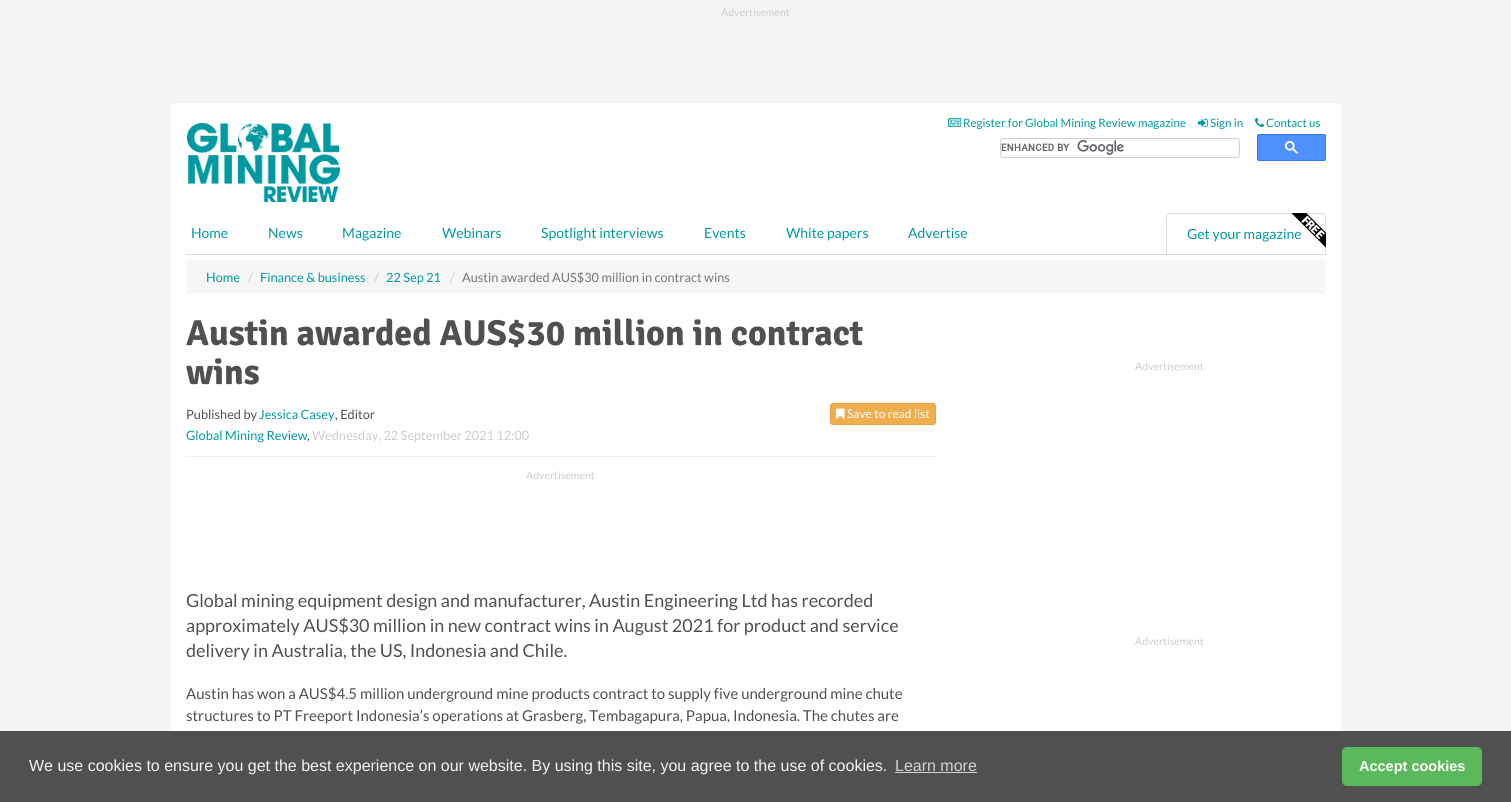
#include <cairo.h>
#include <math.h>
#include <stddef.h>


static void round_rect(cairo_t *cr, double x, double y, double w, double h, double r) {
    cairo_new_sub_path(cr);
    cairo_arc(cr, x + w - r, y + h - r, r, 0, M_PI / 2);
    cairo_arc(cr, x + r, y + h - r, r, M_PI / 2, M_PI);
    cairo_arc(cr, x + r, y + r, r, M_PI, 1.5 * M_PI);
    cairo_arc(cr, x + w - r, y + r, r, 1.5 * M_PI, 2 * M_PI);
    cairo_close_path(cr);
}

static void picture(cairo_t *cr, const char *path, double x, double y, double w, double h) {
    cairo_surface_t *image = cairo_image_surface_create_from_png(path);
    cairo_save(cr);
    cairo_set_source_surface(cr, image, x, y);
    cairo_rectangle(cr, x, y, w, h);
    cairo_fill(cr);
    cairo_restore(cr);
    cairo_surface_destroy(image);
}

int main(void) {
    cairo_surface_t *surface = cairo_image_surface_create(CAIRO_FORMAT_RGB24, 1511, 802);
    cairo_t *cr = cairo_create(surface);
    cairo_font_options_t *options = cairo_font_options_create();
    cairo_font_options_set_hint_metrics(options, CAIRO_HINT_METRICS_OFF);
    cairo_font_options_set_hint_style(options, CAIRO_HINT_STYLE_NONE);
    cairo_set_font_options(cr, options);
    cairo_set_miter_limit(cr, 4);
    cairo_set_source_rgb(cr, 0.957, 0.957, 0.957);
    cairo_paint(cr);
    cairo_select_font_face(cr, "Lato", CAIRO_FONT_SLANT_NORMAL, CAIRO_FONT_WEIGHT_NORMAL);
    cairo_set_font_size(cr, 10.5);
    cairo_set_source_rgb(cr, 0.8, 0.8, 0.8);
    cairo_move_to(cr, 721, 16);
    cairo_show_text(cr, "Advertisement");
    cairo_set_source_rgb(cr, 1, 1, 1);
    round_rect(cr, 171, 103, 1170, 39, 4);
    cairo_fill(cr);
    picture(cr, "img1.png", 948, 117, 14, 10);
    cairo_set_font_size(cr, 11.6);
    cairo_set_source_rgb(cr, 0, 0.6, 0.627);
    cairo_move_to(cr, 963, 127);
    cairo_show_text(cr, "Register for Global Mining Review magazine");
    picture(cr, "img2.png", 1198, 118, 10, 9);
    cairo_move_to(cr, 1210, 127);
    cairo_show_text(cr, "Sign in");
    picture(cr, "img3.png", 1255, 117, 10, 10);
    cairo_move_to(cr, 1266, 127);
    cairo_show_text(cr, "Contact us");
    cairo_set_source_rgb(cr, 1, 1, 1);
    cairo_rectangle(cr, 171, 139, 1170, 74);
    cairo_fill(cr);
    picture(cr, "img4.png", 187, 123, 153, 79);
    picture(cr, "img5.png", 1001, 140, 123, 15);
    round_rect(cr, 1000.5, 138.5, 239, 19, 3.5);
    cairo_set_source_rgb(cr, 0.8, 0.8, 0.8);
    cairo_set_line_width(cr, 1);
    cairo_stroke(cr);
    cairo_set_source_rgb(cr, 0.302, 0.565, 0.996);
    round_rect(cr, 1257.5, 134.5, 68, 26, 1.5);
    cairo_fill_preserve(cr);
    cairo_set_source_rgb(cr, 0.188, 0.475, 0.929);
    cairo_stroke(cr);
    picture(cr, "img6.png", 1285, 141, 13, 13);
    cairo_set_source_rgb(cr, 1, 1, 1);
    cairo_rectangle(cr, 171, 213, 1170, 101);
    cairo_fill(cr);
    cairo_set_source_rgb(cr, 0.867, 0.867, 0.867);
    cairo_rectangle(cr, 186, 254, 1140, 1);
    cairo_fill(cr);
    cairo_set_font_size(cr, 14);
    cairo_set_source_rgb(cr, 0, 0.6, 0.627);
    cairo_move_to(cr, 191, 238);
    cairo_show_text(cr, "Home");
    cairo_move_to(cr, 268, 238);
    cairo_show_text(cr, "News");
    cairo_move_to(cr, 342, 238);
    cairo_show_text(cr, "Magazine");
    cairo_move_to(cr, 442, 238);
    cairo_show_text(cr, "Webinars");
    cairo_move_to(cr, 541, 238);
    cairo_show_text(cr, "Spotlight interviews");
    cairo_move_to(cr, 704, 238);
    cairo_show_text(cr, "Events");
    cairo_move_to(cr, 786, 238);
    cairo_show_text(cr, "White papers");
    cairo_move_to(cr, 908, 238);
    cairo_show_text(cr, "Advertise");
    cairo_set_source_rgb(cr, 0.867, 0.867, 0.867);
    cairo_set_fill_rule(cr, CAIRO_FILL_RULE_EVEN_ODD);
    cairo_new_path(cr);
    cairo_move_to(cr, 1170, 213);
    cairo_line_to(cr, 1322, 213);
    cairo_curve_to(cr, 1324, 213, 1326, 215, 1326, 217);
    cairo_line_to(cr, 1326, 254);
    cairo_line_to(cr, 1166, 254);
    cairo_line_to(cr, 1166, 217);
    cairo_curve_to(cr, 1166, 215, 1168, 213, 1170, 213);
    cairo_close_path(cr);
    cairo_move_to(cr, 1170, 214);
    cairo_line_to(cr, 1322, 214);
    cairo_curve_to(cr, 1324, 214, 1325, 215, 1325, 217);
    cairo_line_to(cr, 1325, 254);
    cairo_line_to(cr, 1167, 254);
    cairo_line_to(cr, 1167, 217);
    cairo_curve_to(cr, 1167, 215, 1168, 214, 1170, 214);
    cairo_close_path(cr);
    cairo_fill(cr);
    cairo_set_source_rgb(cr, 0, 0.6, 0.627);
    cairo_move_to(cr, 1187, 239);
    cairo_show_text(cr, "Get your magazine");
    picture(cr, "img7.png", 1291, 213, 35, 35);
    cairo_set_source_rgb(cr, 0.961, 0.961, 0.961);
    round_rect(cr, 186, 260, 1140, 34, 4);
    cairo_fill(cr);
    cairo_set_font_size(cr, 12.75);
    cairo_set_source_rgb(cr, 0, 0.6, 0.627);
    cairo_move_to(cr, 206, 282);
    cairo_show_text(cr, "Home");
    cairo_set_source_rgb(cr, 0.8, 0.8, 0.8);
    cairo_move_to(cr, 248, 282);
    cairo_show_text(cr, "/");
    cairo_set_source_rgb(cr, 0, 0.6, 0.627);
    cairo_move_to(cr, 260, 282);
    cairo_show_text(cr, "Finance & business");
    cairo_set_source_rgb(cr, 0.8, 0.8, 0.8);
    cairo_move_to(cr, 374, 282);
    cairo_show_text(cr, "/");
    cairo_set_source_rgb(cr, 0, 0.6, 0.627);
    cairo_move_to(cr, 386, 282);
    cairo_show_text(cr, "22 Sep 21");
    cairo_set_source_rgb(cr, 0.8, 0.8, 0.8);
    cairo_move_to(cr, 450, 282);
    cairo_show_text(cr, "/");
    cairo_set_source_rgb(cr, 0.467, 0.467, 0.467);
    cairo_move_to(cr, 462, 282);
    cairo_show_text(cr, "Austin awarded AUS$30 million in contract wins");
    cairo_set_source_rgb(cr, 1, 1, 1);
    round_rect(cr, 171, 310, 1170, 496, 4);
    cairo_fill(cr);
    cairo_select_font_face(cr, "Signika", CAIRO_FONT_SLANT_NORMAL, CAIRO_FONT_WEIGHT_BOLD);
    cairo_set_font_size(cr, 36);
    cairo_set_source_rgb(cr, 0.314, 0.314, 0.314);
    cairo_move_to(cr, 186, 345);
    cairo_show_text(cr, "Austin awarded AUS$30 million in contract");
    cairo_move_to(cr, 186, 384);
    cairo_show_text(cr, "wins");
    cairo_select_font_face(cr, "Lato", CAIRO_FONT_SLANT_NORMAL, CAIRO_FONT_WEIGHT_NORMAL);
    cairo_set_font_size(cr, 12.75);
    cairo_move_to(cr, 186, 419);
    cairo_show_text(cr, "Published by");
    cairo_set_source_rgb(cr, 0, 0.6, 0.627);
    cairo_move_to(cr, 259, 419);
    cairo_show_text(cr, "Jessica Casey");
    cairo_set_source_rgb(cr, 0.314, 0.314, 0.314);
    cairo_move_to(cr, 335, 419);
    cairo_show_text(cr, ", Editor");
    cairo_set_source_rgb(cr, 0.941, 0.678, 0.306);
    round_rect(cr, 830.5, 403.5, 105, 21, 2.5);
    cairo_fill_preserve(cr);
    cairo_set_source_rgb(cr, 0.933, 0.635, 0.212);
    cairo_stroke(cr);
    picture(cr, "img8.png", 836, 408, 9, 11);
    cairo_set_font_size(cr, 12);
    cairo_set_source_rgb(cr, 1, 1, 1);
    cairo_move_to(cr, 847, 418);
    cairo_show_text(cr, "Save to read list");
    cairo_set_font_size(cr, 12.75);
    cairo_set_source_rgb(cr, 0, 0.6, 0.627);
    cairo_move_to(cr, 186, 440);
    cairo_show_text(cr, "Global Mining Review");
    cairo_set_source_rgb(cr, 0.314, 0.314, 0.314);
    cairo_move_to(cr, 307, 440);
    cairo_show_text(cr, ",");
    cairo_set_source_rgb(cr, 0.8, 0.8, 0.8);
    cairo_move_to(cr, 312, 440);
    cairo_show_text(cr, "Wednesday, 22 September 2021 12:00");
    cairo_new_path(cr);
    cairo_move_to(cr, 186, 456.5);
    cairo_line_to(cr, 936, 456.5);
    cairo_set_source_rgb(cr, 0.867, 0.867, 0.867);
    cairo_set_dash(cr, (double[]){1, 1}, 2, 0);
    cairo_stroke(cr);
    cairo_set_font_size(cr, 10.5);
    cairo_set_source_rgb(cr, 0.8, 0.8, 0.8);
    cairo_move_to(cr, 526, 479);
    cairo_show_text(cr, "Advertisement");
    cairo_set_font_size(cr, 18);
    cairo_set_source_rgb(cr, 0.314, 0.314, 0.314);
    cairo_move_to(cr, 186, 607);
    cairo_show_text(cr, "Global mining equipment design and manufacturer, Austin Engineering Ltd has recorded");
    cairo_move_to(cr, 186, 632);
    cairo_show_text(cr, "approximately AUS$30 million in new contract wins in August 2021 for product and service");
    cairo_move_to(cr, 186, 657);
    cairo_show_text(cr, "delivery in Australia, the US, Indonesia and Chile.");
    cairo_set_font_size(cr, 15);
    cairo_move_to(cr, 186, 699);
    cairo_show_text(cr, "Austin has won a AUS$4.5 million underground mine products contract to supply five underground mine chute");
    cairo_move_to(cr, 186, 721);
    cairo_show_text(cr, "structures to PT Freeport Indonesia’s operations at Grasberg, Tembagapura, Papua, Indonesia. The chutes are");
    cairo_set_font_size(cr, 10.5);
    cairo_set_source_rgb(cr, 0.8, 0.8, 0.8);
    cairo_move_to(cr, 1135, 370);
    cairo_show_text(cr, "Advertisement");
    cairo_move_to(cr, 1135, 645);
    cairo_show_text(cr, "Advertisement");
    cairo_set_source_rgb(cr, 0.314, 0.314, 0.314);
    cairo_rectangle(cr, 0, 731, 1511, 71);
    cairo_fill(cr);
    cairo_select_font_face(cr, "Liberation Sans", CAIRO_FONT_SLANT_NORMAL, CAIRO_FONT_WEIGHT_NORMAL);
    cairo_set_font_size(cr, 16);
    cairo_set_source_rgb(cr, 0.957, 0.957, 0.957);
    cairo_move_to(cr, 29, 771);
    cairo_show_text(cr, "We use cookies to ensure you get the best experience on our website. By using this site, you agree to the use of cookies.");
    cairo_set_source_rgb(cr, 0.827, 0.827, 0.827);
    cairo_move_to(cr, 895, 771);
    cairo_show_text(cr, "Learn more");
    cairo_rectangle(cr, 895, 772, 82, 1);
    cairo_fill(cr);
    cairo_set_source_rgb(cr, 0.361, 0.722, 0.361);
    round_rect(cr, 1342, 747, 140, 39, 5);
    cairo_fill(cr);
    cairo_select_font_face(cr, "Liberation Sans", CAIRO_FONT_SLANT_NORMAL, CAIRO_FONT_WEIGHT_BOLD);
    cairo_set_font_size(cr, 14.5);
    cairo_set_source_rgb(cr, 1, 1, 1);
    cairo_move_to(cr, 1359, 771);
    cairo_show_text(cr, "Accept cookies");
    cairo_surface_write_to_png(surface, "page.png");
    cairo_font_options_destroy(options);
    cairo_destroy(cr);
    cairo_surface_destroy(surface);
    return 0;
}
